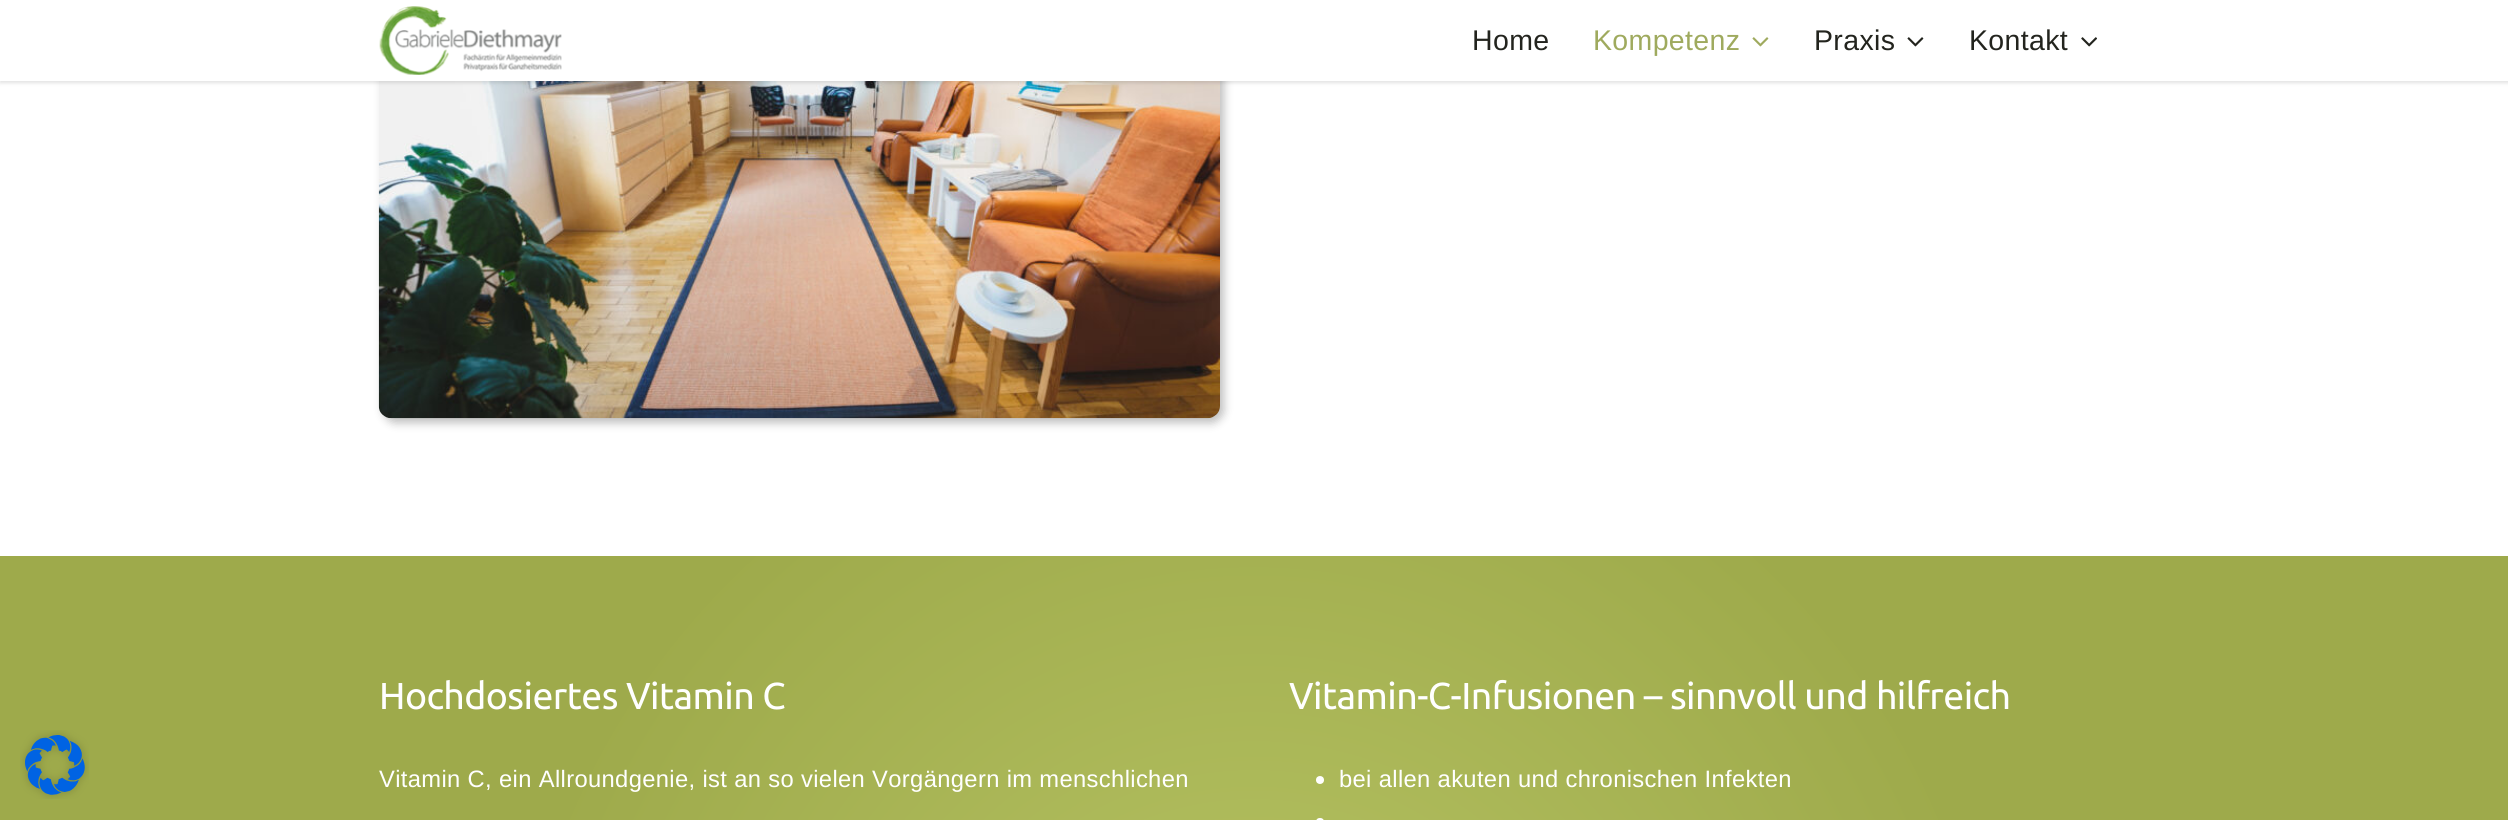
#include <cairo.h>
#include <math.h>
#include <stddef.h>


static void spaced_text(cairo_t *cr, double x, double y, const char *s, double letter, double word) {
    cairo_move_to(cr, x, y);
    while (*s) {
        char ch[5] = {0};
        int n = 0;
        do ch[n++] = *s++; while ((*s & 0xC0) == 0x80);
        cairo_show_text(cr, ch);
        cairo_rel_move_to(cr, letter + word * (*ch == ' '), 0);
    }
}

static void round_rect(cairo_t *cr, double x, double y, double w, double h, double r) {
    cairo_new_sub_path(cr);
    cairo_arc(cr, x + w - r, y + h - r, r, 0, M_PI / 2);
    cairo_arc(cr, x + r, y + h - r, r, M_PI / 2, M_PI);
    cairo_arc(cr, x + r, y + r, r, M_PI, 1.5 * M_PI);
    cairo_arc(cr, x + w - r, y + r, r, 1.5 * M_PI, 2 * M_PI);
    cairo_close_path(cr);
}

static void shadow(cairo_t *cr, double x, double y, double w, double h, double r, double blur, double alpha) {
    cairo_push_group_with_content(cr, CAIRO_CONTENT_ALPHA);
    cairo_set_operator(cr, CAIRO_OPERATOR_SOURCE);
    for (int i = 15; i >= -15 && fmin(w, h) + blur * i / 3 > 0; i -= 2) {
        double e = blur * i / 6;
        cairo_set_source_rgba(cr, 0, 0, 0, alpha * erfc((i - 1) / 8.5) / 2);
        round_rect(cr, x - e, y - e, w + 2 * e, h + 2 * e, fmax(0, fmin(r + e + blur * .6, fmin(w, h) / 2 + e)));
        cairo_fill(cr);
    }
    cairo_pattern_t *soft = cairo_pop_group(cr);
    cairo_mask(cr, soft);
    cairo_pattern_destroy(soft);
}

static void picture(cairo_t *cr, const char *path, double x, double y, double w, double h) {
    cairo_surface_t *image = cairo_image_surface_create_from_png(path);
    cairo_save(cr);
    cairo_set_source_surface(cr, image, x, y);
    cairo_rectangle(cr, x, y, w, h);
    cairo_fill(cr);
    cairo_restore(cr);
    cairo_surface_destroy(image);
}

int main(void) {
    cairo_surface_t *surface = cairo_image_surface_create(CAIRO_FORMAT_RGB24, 2508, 820);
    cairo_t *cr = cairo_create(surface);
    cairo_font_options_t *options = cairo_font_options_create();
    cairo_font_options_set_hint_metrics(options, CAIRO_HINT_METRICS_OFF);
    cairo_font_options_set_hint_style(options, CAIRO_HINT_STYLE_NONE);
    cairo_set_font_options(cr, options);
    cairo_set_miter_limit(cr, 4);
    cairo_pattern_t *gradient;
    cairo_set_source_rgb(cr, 1, 1, 1);
    cairo_paint(cr);
    gradient = cairo_pattern_create_radial(1254, 1106, 0, 1254, 1106, 1370);
    cairo_pattern_add_color_stop_rgba(gradient, 0, 0.718, 0.769, 0.392, 1);
    cairo_pattern_add_color_stop_rgba(gradient, 0.55, 0.62, 0.667, 0.294, 1);
    cairo_set_source(cr, gradient);
    cairo_pattern_destroy(gradient);
    cairo_rectangle(cr, 0, 556, 2508, 264);
    cairo_fill(cr);
    picture(cr, "img1.png", 20, 730, 69, 69);
    cairo_set_source_rgb(cr, 0.157, 0.157, 0.157);
    shadow(cr, 383, -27, 841, 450, 13, 4.5, 0.3);
    picture(cr, "img6.png", 378, 81, 842, 338);
    cairo_set_source_rgb(cr, 0, 0, 0);
    shadow(cr, 0, 1, 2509, 82, 0, 2, 0.12);
    cairo_set_source_rgb(cr, 1, 1, 1);
    cairo_rectangle(cr, 0, 0, 2508, 81);
    cairo_fill(cr);
    picture(cr, "img2.png", 379, 6, 183, 69);
    cairo_select_font_face(cr, "Liberation Sans", CAIRO_FONT_SLANT_NORMAL, CAIRO_FONT_WEIGHT_NORMAL);
    cairo_set_font_size(cr, 28.5);
    cairo_set_source_rgb(cr, 0.137, 0.141, 0.118);
    spaced_text(cr, 1472, 50, "Home", 0.35, 0);
    cairo_set_source_rgb(cr, 0.624, 0.667, 0.369);
    spaced_text(cr, 1593, 50, "Kompetenz", 0.35, 0);
    picture(cr, "img3.png", 1752, 37, 17, 10);
    cairo_set_source_rgb(cr, 0.137, 0.141, 0.118);
    spaced_text(cr, 1814, 50, "Praxis", 0.35, 0);
    picture(cr, "img4.png", 1907, 37, 17, 10);
    spaced_text(cr, 1969, 50, "Kontakt", 0.35, 0);
    picture(cr, "img5.png", 2081, 37, 16, 10);
    cairo_select_font_face(cr, "Ubuntu", CAIRO_FONT_SLANT_NORMAL, CAIRO_FONT_WEIGHT_NORMAL);
    cairo_set_font_size(cr, 37.5);
    cairo_set_source_rgb(cr, 1, 1, 1);
    spaced_text(cr, 379, 709, "Hochdosiertes Vitamin C", -0.55, 0);
    cairo_select_font_face(cr, "Liberation Sans", CAIRO_FONT_SLANT_NORMAL, CAIRO_FONT_WEIGHT_NORMAL);
    cairo_set_font_size(cr, 23.75);
    spaced_text(cr, 379, 787, "Vitamin C, ein Allroundgenie, ist an so vielen Vorgängern im menschlichen", 0.35, 0);
    cairo_select_font_face(cr, "Ubuntu", CAIRO_FONT_SLANT_NORMAL, CAIRO_FONT_WEIGHT_NORMAL);
    cairo_set_font_size(cr, 37.5);
    spaced_text(cr, 1289, 709, "Vitamin-C-Infusionen – sinnvoll und hilfreich", -0.55, 0);
    cairo_new_path(cr);
    cairo_arc(cr, 1320, 780, 4, 0, 2 * M_PI);
    cairo_fill(cr);
    cairo_select_font_face(cr, "Liberation Sans", CAIRO_FONT_SLANT_NORMAL, CAIRO_FONT_WEIGHT_NORMAL);
    cairo_set_font_size(cr, 23.75);
    spaced_text(cr, 1339, 787, "bei allen akuten und chronischen Infekten", 0.35, 0);
    round_rect(cr, 1316, 818, 8, 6, 3.5);
    cairo_fill(cr);
    cairo_surface_write_to_png(surface, "page.png");
    cairo_font_options_destroy(options);
    cairo_destroy(cr);
    cairo_surface_destroy(surface);
    return 0;
}
